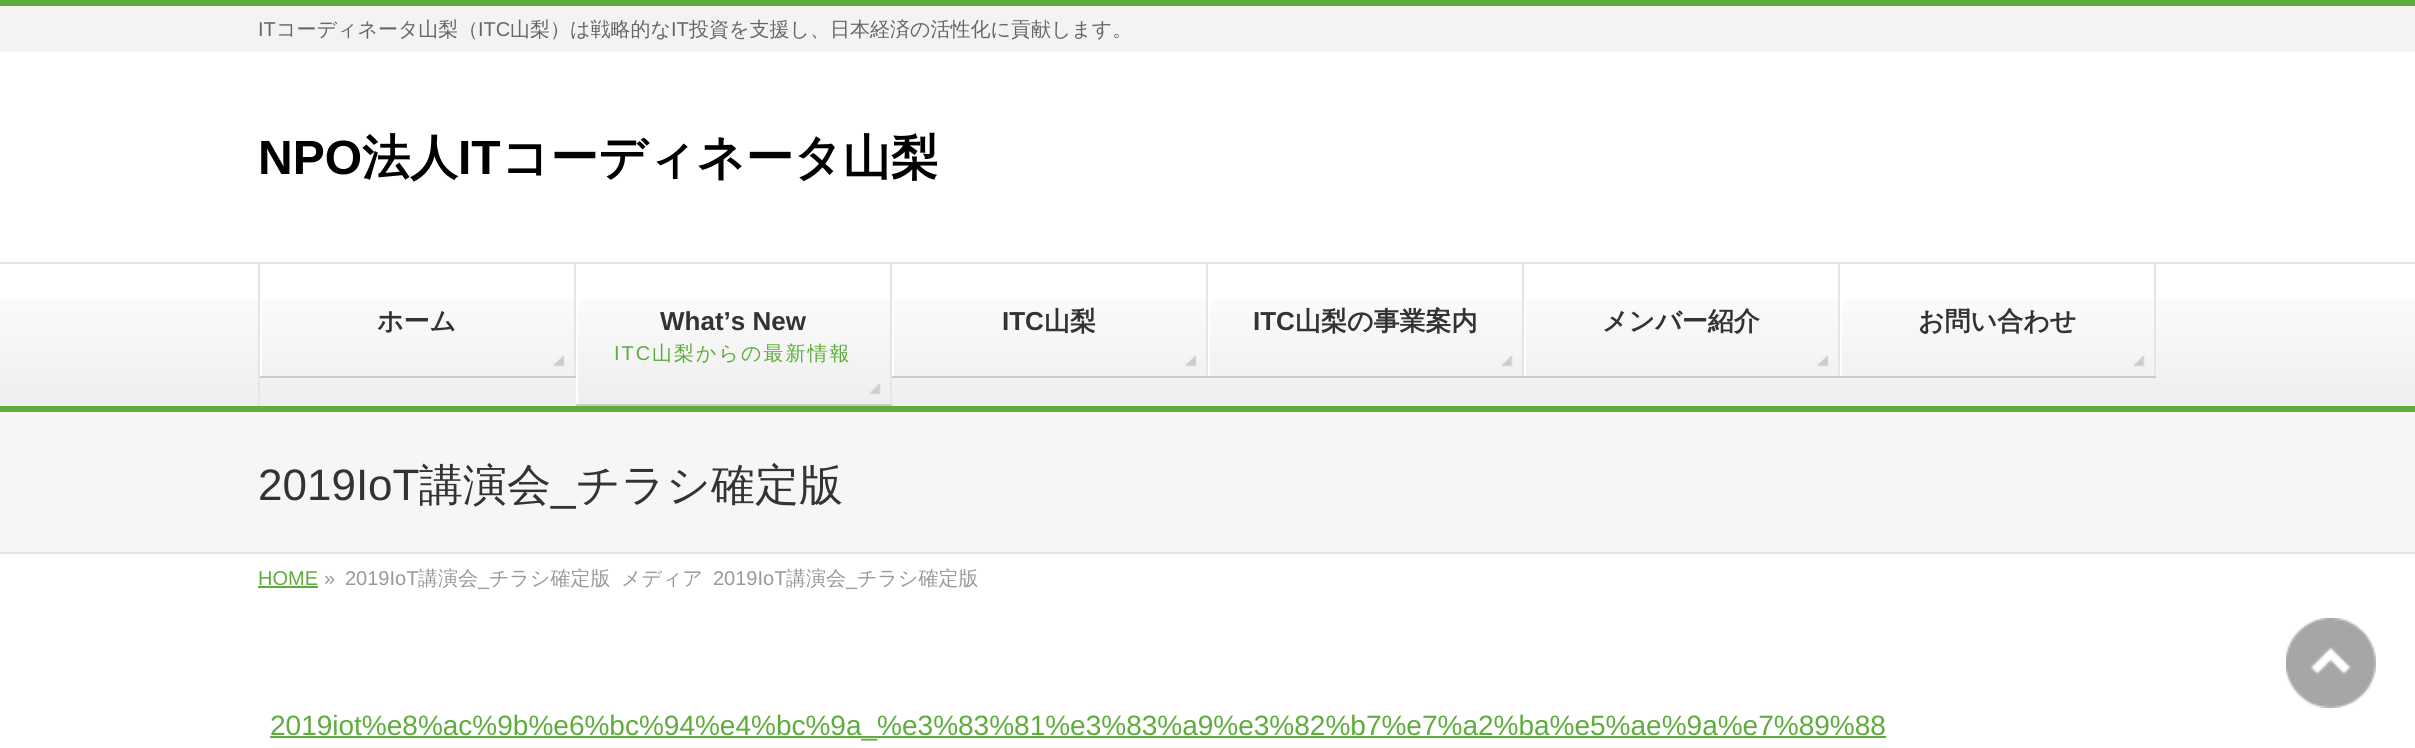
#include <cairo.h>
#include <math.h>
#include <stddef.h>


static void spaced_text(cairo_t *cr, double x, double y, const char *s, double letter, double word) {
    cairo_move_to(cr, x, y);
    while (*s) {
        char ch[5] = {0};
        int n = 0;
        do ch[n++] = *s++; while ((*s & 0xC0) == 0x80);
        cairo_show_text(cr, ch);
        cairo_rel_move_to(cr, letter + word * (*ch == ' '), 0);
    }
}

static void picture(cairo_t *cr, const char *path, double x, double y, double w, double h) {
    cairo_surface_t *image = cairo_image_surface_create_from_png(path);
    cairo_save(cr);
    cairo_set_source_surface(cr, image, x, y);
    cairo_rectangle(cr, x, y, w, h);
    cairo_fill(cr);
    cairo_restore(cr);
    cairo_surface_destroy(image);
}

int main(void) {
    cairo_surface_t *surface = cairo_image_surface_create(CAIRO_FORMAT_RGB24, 2415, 748);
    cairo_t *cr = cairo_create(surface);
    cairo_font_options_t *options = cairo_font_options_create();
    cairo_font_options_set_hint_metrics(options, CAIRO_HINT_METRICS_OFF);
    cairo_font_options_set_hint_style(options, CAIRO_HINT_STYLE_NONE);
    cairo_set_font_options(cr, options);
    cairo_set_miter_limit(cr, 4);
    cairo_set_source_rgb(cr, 1, 1, 1);
    cairo_paint(cr);
    cairo_set_source_rgb(cr, 0.953, 0.953, 0.953);
    cairo_rectangle(cr, 0, 6, 2415, 46);
    cairo_fill(cr);
    cairo_set_source_rgb(cr, 0.369, 0.678, 0.235);
    cairo_rectangle(cr, 0, 0, 2415, 6);
    cairo_fill(cr);
    cairo_select_font_face(cr, "Liberation Sans", CAIRO_FONT_SLANT_NORMAL, CAIRO_FONT_WEIGHT_NORMAL);
    cairo_set_font_size(cr, 20);
    cairo_set_source_rgb(cr, 0.4, 0.4, 0.4);
    cairo_move_to(cr, 258, 36);
    cairo_show_text(cr, "IT");
    cairo_select_font_face(cr, "WenQuanYi Zen Hei Medium", CAIRO_FONT_SLANT_NORMAL, CAIRO_FONT_WEIGHT_NORMAL);
    cairo_move_to(cr, 276, 36);
    cairo_show_text(cr, "コーディネータ山梨（");
    cairo_select_font_face(cr, "Liberation Sans", CAIRO_FONT_SLANT_NORMAL, CAIRO_FONT_WEIGHT_NORMAL);
    cairo_move_to(cr, 478, 36);
    cairo_show_text(cr, "ITC");
    cairo_select_font_face(cr, "WenQuanYi Zen Hei Medium", CAIRO_FONT_SLANT_NORMAL, CAIRO_FONT_WEIGHT_NORMAL);
    cairo_move_to(cr, 510, 36);
    cairo_show_text(cr, "山梨）は戦略的な");
    cairo_select_font_face(cr, "Liberation Sans", CAIRO_FONT_SLANT_NORMAL, CAIRO_FONT_WEIGHT_NORMAL);
    cairo_move_to(cr, 671, 36);
    cairo_show_text(cr, "IT");
    cairo_select_font_face(cr, "WenQuanYi Zen Hei Medium", CAIRO_FONT_SLANT_NORMAL, CAIRO_FONT_WEIGHT_NORMAL);
    cairo_move_to(cr, 689, 36);
    cairo_show_text(cr, "投資を支援し、日本経済の活性化に貢献します。");
    cairo_select_font_face(cr, "Liberation Sans", CAIRO_FONT_SLANT_NORMAL, CAIRO_FONT_WEIGHT_BOLD);
    cairo_set_font_size(cr, 48);
    cairo_set_source_rgb(cr, 0, 0, 0);
    cairo_move_to(cr, 258, 174);
    cairo_show_text(cr, "NPO");
    cairo_select_font_face(cr, "WenQuanYi Zen Hei", CAIRO_FONT_SLANT_NORMAL, CAIRO_FONT_WEIGHT_BOLD);
    cairo_move_to(cr, 362, 174);
    cairo_show_text(cr, "法人");
    cairo_select_font_face(cr, "Liberation Sans", CAIRO_FONT_SLANT_NORMAL, CAIRO_FONT_WEIGHT_BOLD);
    cairo_move_to(cr, 458, 174);
    cairo_show_text(cr, "IT");
    cairo_select_font_face(cr, "WenQuanYi Zen Hei", CAIRO_FONT_SLANT_NORMAL, CAIRO_FONT_WEIGHT_BOLD);
    cairo_move_to(cr, 501, 174);
    cairo_show_text(cr, "コーディネータ山梨");
    picture(cr, "img1.png", 0, 300, 2415, 106);
    cairo_set_source_rgb(cr, 0.898, 0.898, 0.898);
    cairo_rectangle(cr, 0, 262, 2415, 2);
    cairo_fill(cr);
    cairo_set_source_rgb(cr, 0.369, 0.678, 0.235);
    cairo_rectangle(cr, 0, 406, 2415, 6);
    cairo_fill(cr);
    cairo_set_source_rgb(cr, 0.898, 0.898, 0.898);
    cairo_rectangle(cr, 258, 264, 2, 142);
    cairo_fill(cr);
    cairo_set_source_rgb(cr, 1, 1, 1);
    cairo_rectangle(cr, 260, 300, 2, 78);
    cairo_fill(cr);
    picture(cr, "img2.png", 554, 356, 11, 11);
    cairo_set_source_rgb(cr, 0.898, 0.898, 0.898);
    cairo_rectangle(cr, 574, 264, 2, 114);
    cairo_fill(cr);
    cairo_set_source_rgb(cr, 0.8, 0.8, 0.8);
    cairo_rectangle(cr, 260, 376, 316, 2);
    cairo_fill(cr);
    cairo_set_font_size(cr, 26);
    cairo_set_source_rgb(cr, 0.2, 0.2, 0.2);
    cairo_move_to(cr, 377, 330);
    cairo_show_text(cr, "ホーム");
    cairo_set_source_rgb(cr, 1, 1, 1);
    cairo_rectangle(cr, 576, 300, 2, 106);
    cairo_fill(cr);
    picture(cr, "img3.png", 870, 384, 11, 11);
    cairo_set_source_rgb(cr, 0.898, 0.898, 0.898);
    cairo_rectangle(cr, 890, 264, 2, 142);
    cairo_fill(cr);
    cairo_set_source_rgb(cr, 0.8, 0.8, 0.8);
    cairo_rectangle(cr, 576, 404, 316, 2);
    cairo_fill(cr);
    cairo_select_font_face(cr, "Liberation Sans", CAIRO_FONT_SLANT_NORMAL, CAIRO_FONT_WEIGHT_BOLD);
    cairo_set_source_rgb(cr, 0.2, 0.2, 0.2);
    cairo_move_to(cr, 660, 330);
    cairo_show_text(cr, "What’s New");
    cairo_select_font_face(cr, "Liberation Sans", CAIRO_FONT_SLANT_NORMAL, CAIRO_FONT_WEIGHT_NORMAL);
    cairo_set_font_size(cr, 20);
    cairo_set_source_rgb(cr, 0.369, 0.678, 0.235);
    spaced_text(cr, 614, 360, "ITC", 2, 0);
    cairo_select_font_face(cr, "WenQuanYi Zen Hei Medium", CAIRO_FONT_SLANT_NORMAL, CAIRO_FONT_WEIGHT_NORMAL);
    spaced_text(cr, 652, 360, "山梨からの最新情報", 2, 0);
    cairo_set_source_rgb(cr, 1, 1, 1);
    cairo_rectangle(cr, 892, 300, 2, 78);
    cairo_fill(cr);
    picture(cr, "img2.png", 1186, 356, 11, 11);
    cairo_set_source_rgb(cr, 0.898, 0.898, 0.898);
    cairo_rectangle(cr, 1206, 264, 2, 114);
    cairo_fill(cr);
    cairo_set_source_rgb(cr, 0.8, 0.8, 0.8);
    cairo_rectangle(cr, 892, 376, 316, 2);
    cairo_fill(cr);
    cairo_select_font_face(cr, "Liberation Sans", CAIRO_FONT_SLANT_NORMAL, CAIRO_FONT_WEIGHT_BOLD);
    cairo_set_font_size(cr, 26);
    cairo_set_source_rgb(cr, 0.2, 0.2, 0.2);
    cairo_move_to(cr, 1002, 330);
    cairo_show_text(cr, "ITC");
    cairo_select_font_face(cr, "WenQuanYi Zen Hei", CAIRO_FONT_SLANT_NORMAL, CAIRO_FONT_WEIGHT_BOLD);
    cairo_move_to(cr, 1044, 330);
    cairo_show_text(cr, "山梨");
    cairo_set_source_rgb(cr, 1, 1, 1);
    cairo_rectangle(cr, 1208, 300, 2, 78);
    cairo_fill(cr);
    picture(cr, "img2.png", 1502, 356, 11, 11);
    cairo_set_source_rgb(cr, 0.898, 0.898, 0.898);
    cairo_rectangle(cr, 1522, 264, 2, 114);
    cairo_fill(cr);
    cairo_set_source_rgb(cr, 0.8, 0.8, 0.8);
    cairo_rectangle(cr, 1208, 376, 316, 2);
    cairo_fill(cr);
    cairo_select_font_face(cr, "Liberation Sans", CAIRO_FONT_SLANT_NORMAL, CAIRO_FONT_WEIGHT_BOLD);
    cairo_set_source_rgb(cr, 0.2, 0.2, 0.2);
    cairo_move_to(cr, 1253, 330);
    cairo_show_text(cr, "ITC");
    cairo_select_font_face(cr, "WenQuanYi Zen Hei", CAIRO_FONT_SLANT_NORMAL, CAIRO_FONT_WEIGHT_BOLD);
    cairo_move_to(cr, 1295, 330);
    cairo_show_text(cr, "山梨の事業案内");
    cairo_set_source_rgb(cr, 1, 1, 1);
    cairo_rectangle(cr, 1524, 300, 2, 78);
    cairo_fill(cr);
    picture(cr, "img2.png", 1818, 356, 11, 11);
    cairo_set_source_rgb(cr, 0.898, 0.898, 0.898);
    cairo_rectangle(cr, 1838, 264, 2, 114);
    cairo_fill(cr);
    cairo_set_source_rgb(cr, 0.8, 0.8, 0.8);
    cairo_rectangle(cr, 1524, 376, 316, 2);
    cairo_fill(cr);
    cairo_set_source_rgb(cr, 0.2, 0.2, 0.2);
    cairo_move_to(cr, 1602, 330);
    cairo_show_text(cr, "メンバー紹介");
    cairo_set_source_rgb(cr, 1, 1, 1);
    cairo_rectangle(cr, 1840, 300, 2, 78);
    cairo_fill(cr);
    picture(cr, "img2.png", 2134, 356, 11, 11);
    cairo_set_source_rgb(cr, 0.898, 0.898, 0.898);
    cairo_rectangle(cr, 2154, 264, 2, 114);
    cairo_fill(cr);
    cairo_set_source_rgb(cr, 0.8, 0.8, 0.8);
    cairo_rectangle(cr, 1840, 376, 316, 2);
    cairo_fill(cr);
    cairo_set_source_rgb(cr, 0.2, 0.2, 0.2);
    cairo_move_to(cr, 1918, 330);
    cairo_show_text(cr, "お問い合わせ");
    cairo_set_source_rgb(cr, 0.961, 0.961, 0.961);
    cairo_rectangle(cr, 0, 412, 2415, 140);
    cairo_fill(cr);
    cairo_set_source_rgb(cr, 0.898, 0.898, 0.898);
    cairo_rectangle(cr, 0, 552, 2415, 2);
    cairo_fill(cr);
    cairo_select_font_face(cr, "Liberation Sans", CAIRO_FONT_SLANT_NORMAL, CAIRO_FONT_WEIGHT_NORMAL);
    cairo_set_font_size(cr, 44);
    cairo_set_source_rgb(cr, 0.2, 0.2, 0.2);
    cairo_move_to(cr, 258, 500);
    cairo_show_text(cr, "2019IoT");
    cairo_select_font_face(cr, "WenQuanYi Zen Hei Medium", CAIRO_FONT_SLANT_NORMAL, CAIRO_FONT_WEIGHT_NORMAL);
    cairo_move_to(cr, 419, 500);
    cairo_show_text(cr, "講演会");
    cairo_move_to(cr, 576, 500);
    cairo_show_text(cr, "チラシ確定版");
    cairo_select_font_face(cr, "Liberation Sans", CAIRO_FONT_SLANT_NORMAL, CAIRO_FONT_WEIGHT_NORMAL);
    cairo_move_to(cr, 551, 500);
    cairo_show_text(cr, "_");
    cairo_set_font_size(cr, 20);
    cairo_set_source_rgb(cr, 0.369, 0.678, 0.235);
    cairo_move_to(cr, 258, 585);
    cairo_show_text(cr, "HOME");
    cairo_rectangle(cr, 258, 586, 60, 2);
    cairo_fill(cr);
    cairo_set_source_rgb(cr, 0.6, 0.6, 0.6);
    cairo_move_to(cr, 324, 585);
    cairo_show_text(cr, "»");
    cairo_move_to(cr, 345, 585);
    cairo_show_text(cr, "2019IoT");
    cairo_select_font_face(cr, "WenQuanYi Zen Hei Medium", CAIRO_FONT_SLANT_NORMAL, CAIRO_FONT_WEIGHT_NORMAL);
    cairo_move_to(cr, 418, 585);
    cairo_show_text(cr, "講演会");
    cairo_move_to(cr, 489, 585);
    cairo_show_text(cr, "チラシ確定版");
    cairo_select_font_face(cr, "Liberation Sans", CAIRO_FONT_SLANT_NORMAL, CAIRO_FONT_WEIGHT_NORMAL);
    cairo_move_to(cr, 478, 585);
    cairo_show_text(cr, "_");
    cairo_select_font_face(cr, "WenQuanYi Zen Hei Medium", CAIRO_FONT_SLANT_NORMAL, CAIRO_FONT_WEIGHT_NORMAL);
    cairo_move_to(cr, 621, 585);
    cairo_show_text(cr, "メディア");
    cairo_select_font_face(cr, "Liberation Sans", CAIRO_FONT_SLANT_NORMAL, CAIRO_FONT_WEIGHT_NORMAL);
    cairo_move_to(cr, 713, 585);
    cairo_show_text(cr, "2019IoT");
    cairo_select_font_face(cr, "WenQuanYi Zen Hei Medium", CAIRO_FONT_SLANT_NORMAL, CAIRO_FONT_WEIGHT_NORMAL);
    cairo_move_to(cr, 786, 585);
    cairo_show_text(cr, "講演会");
    cairo_move_to(cr, 857, 585);
    cairo_show_text(cr, "チラシ確定版");
    cairo_select_font_face(cr, "Liberation Sans", CAIRO_FONT_SLANT_NORMAL, CAIRO_FONT_WEIGHT_NORMAL);
    cairo_move_to(cr, 846, 585);
    cairo_show_text(cr, "_");
    picture(cr, "img4.png", 2286, 618, 90, 90);
    cairo_set_source_rgb(cr, 0.369, 0.678, 0.235);
    cairo_rectangle(cr, 270, 736, 1616, 2);
    cairo_fill(cr);
    cairo_set_font_size(cr, 28);
    cairo_move_to(cr, 270, 735);
    cairo_show_text(cr, "2019iot%e8%ac%9b%e6%bc%94%e4%bc%9a_%e3%83%81%e3%83%a9%e3%82%b7%e7%a2%ba%e5%ae%9a%e7%89%88");
    cairo_surface_write_to_png(surface, "page.png");
    cairo_font_options_destroy(options);
    cairo_destroy(cr);
    cairo_surface_destroy(surface);
    return 0;
}
